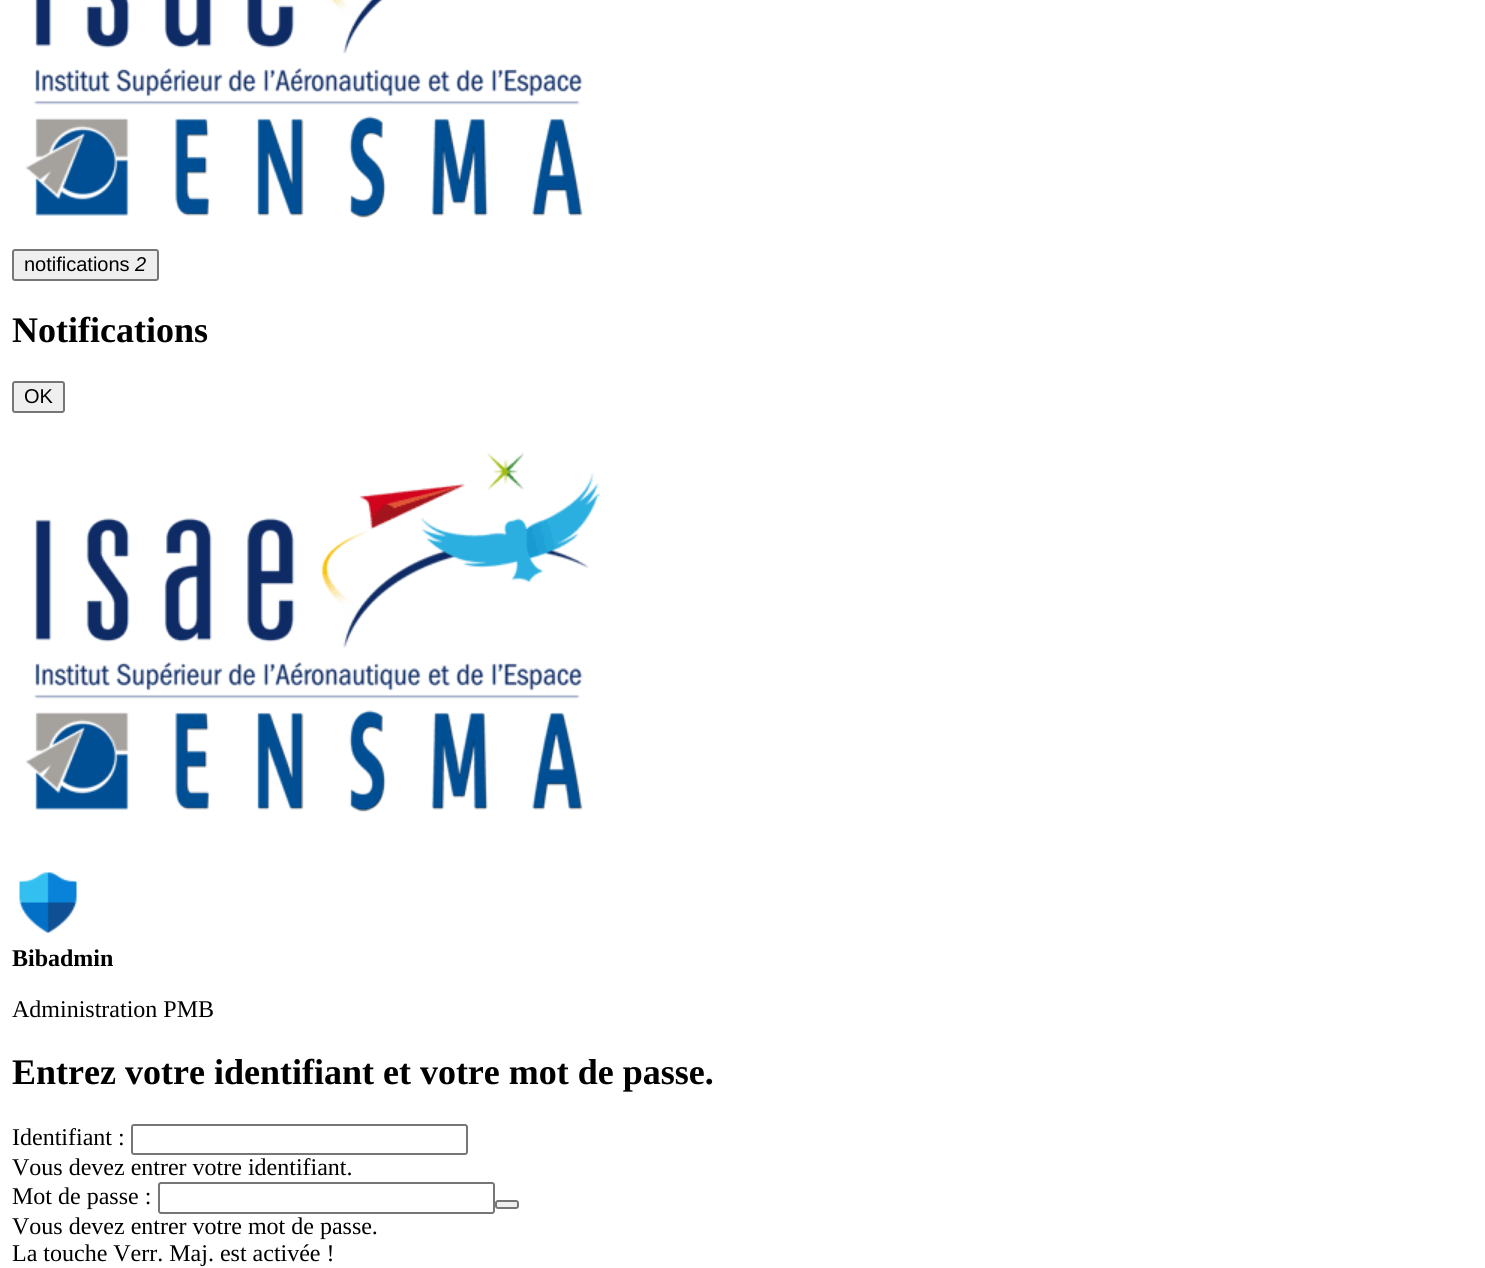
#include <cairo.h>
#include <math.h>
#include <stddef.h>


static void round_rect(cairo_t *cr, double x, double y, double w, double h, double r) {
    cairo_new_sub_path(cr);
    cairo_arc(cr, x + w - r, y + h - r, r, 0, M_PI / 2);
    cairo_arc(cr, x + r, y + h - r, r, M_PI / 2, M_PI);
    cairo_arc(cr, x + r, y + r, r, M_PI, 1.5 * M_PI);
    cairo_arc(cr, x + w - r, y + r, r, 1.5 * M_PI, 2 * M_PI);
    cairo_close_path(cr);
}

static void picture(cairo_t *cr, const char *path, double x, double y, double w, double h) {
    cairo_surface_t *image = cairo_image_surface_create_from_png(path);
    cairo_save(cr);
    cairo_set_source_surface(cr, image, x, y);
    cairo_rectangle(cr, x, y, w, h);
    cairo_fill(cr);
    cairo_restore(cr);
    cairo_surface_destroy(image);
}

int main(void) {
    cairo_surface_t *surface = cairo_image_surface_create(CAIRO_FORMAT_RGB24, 1485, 1268);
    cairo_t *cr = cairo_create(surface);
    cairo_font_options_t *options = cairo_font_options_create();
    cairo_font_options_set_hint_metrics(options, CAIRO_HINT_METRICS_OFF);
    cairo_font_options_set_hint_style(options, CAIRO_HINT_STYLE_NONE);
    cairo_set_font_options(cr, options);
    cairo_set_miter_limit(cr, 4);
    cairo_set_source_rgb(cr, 1, 1, 1);
    cairo_paint(cr);
    picture(cr, "img1.png", 25, 0, 558, 218);
    cairo_set_source_rgb(cr, 0.937, 0.937, 0.937);
    round_rect(cr, 13, 250, 145, 30, 2);
    cairo_fill_preserve(cr);
    cairo_set_source_rgb(cr, 0.463, 0.463, 0.463);
    cairo_stroke(cr);
    cairo_select_font_face(cr, "Liberation Sans", CAIRO_FONT_SLANT_NORMAL, CAIRO_FONT_WEIGHT_NORMAL);
    cairo_set_font_size(cr, 20);
    cairo_set_source_rgb(cr, 0, 0, 0);
    cairo_move_to(cr, 24, 271);
    cairo_show_text(cr, "notifications");
    cairo_select_font_face(cr, "Liberation Sans", CAIRO_FONT_SLANT_ITALIC, CAIRO_FONT_WEIGHT_NORMAL);
    cairo_move_to(cr, 135, 271);
    cairo_show_text(cr, "2");
    cairo_select_font_face(cr, "Liberation Serif", CAIRO_FONT_SLANT_NORMAL, CAIRO_FONT_WEIGHT_BOLD);
    cairo_set_font_size(cr, 36);
    cairo_move_to(cr, 12, 342);
    cairo_show_text(cr, "Notifications");
    cairo_set_source_rgb(cr, 0.937, 0.937, 0.937);
    round_rect(cr, 13, 382, 51, 30, 2);
    cairo_fill_preserve(cr);
    cairo_set_source_rgb(cr, 0.463, 0.463, 0.463);
    cairo_stroke(cr);
    cairo_select_font_face(cr, "Liberation Sans", CAIRO_FONT_SLANT_NORMAL, CAIRO_FONT_WEIGHT_NORMAL);
    cairo_set_font_size(cr, 20);
    cairo_set_source_rgb(cr, 0, 0, 0);
    cairo_move_to(cr, 24, 403);
    cairo_show_text(cr, "OK");
    picture(cr, "img2.png", 25, 452, 576, 360);
    picture(cr, "img3.png", 19, 872, 58, 61);
    cairo_select_font_face(cr, "Liberation Serif", CAIRO_FONT_SLANT_NORMAL, CAIRO_FONT_WEIGHT_BOLD);
    cairo_set_font_size(cr, 24);
    cairo_move_to(cr, 12, 966);
    cairo_show_text(cr, "Bibadmin");
    cairo_select_font_face(cr, "Liberation Serif", CAIRO_FONT_SLANT_NORMAL, CAIRO_FONT_WEIGHT_NORMAL);
    cairo_move_to(cr, 12, 1017);
    cairo_show_text(cr, "Administration PMB");
    cairo_select_font_face(cr, "Liberation Serif", CAIRO_FONT_SLANT_NORMAL, CAIRO_FONT_WEIGHT_BOLD);
    cairo_set_font_size(cr, 36);
    cairo_move_to(cr, 12, 1084);
    cairo_show_text(cr, "Entrez votre identifiant et votre mot de passe.");
    cairo_select_font_face(cr, "Liberation Serif", CAIRO_FONT_SLANT_NORMAL, CAIRO_FONT_WEIGHT_NORMAL);
    cairo_set_font_size(cr, 24);
    cairo_move_to(cr, 12, 1145);
    cairo_show_text(cr, "Identifiant :");
    round_rect(cr, 132, 1125, 335, 29, 2);
    cairo_set_source_rgb(cr, 0.463, 0.463, 0.463);
    cairo_stroke(cr);
    cairo_set_source_rgb(cr, 0, 0, 0);
    cairo_move_to(cr, 12, 1175);
    cairo_show_text(cr, "Vous devez entrer votre identifiant.");
    cairo_move_to(cr, 12, 1204);
    cairo_show_text(cr, "Mot de passe :");
    round_rect(cr, 159, 1183, 335, 30, 2);
    cairo_set_source_rgb(cr, 0.463, 0.463, 0.463);
    cairo_stroke(cr);
    cairo_set_source_rgb(cr, 0.937, 0.937, 0.937);
    round_rect(cr, 496, 1201, 22, 7, 2);
    cairo_fill_preserve(cr);
    cairo_set_source_rgb(cr, 0.463, 0.463, 0.463);
    cairo_stroke(cr);
    cairo_set_source_rgb(cr, 0, 0, 0);
    cairo_move_to(cr, 12, 1234);
    cairo_show_text(cr, "Vous devez entrer votre mot de passe.");
    cairo_move_to(cr, 12, 1261);
    cairo_show_text(cr, "La touche Verr. Maj. est activée !");
    cairo_surface_write_to_png(surface, "page.png");
    cairo_font_options_destroy(options);
    cairo_destroy(cr);
    cairo_surface_destroy(surface);
    return 0;
}
